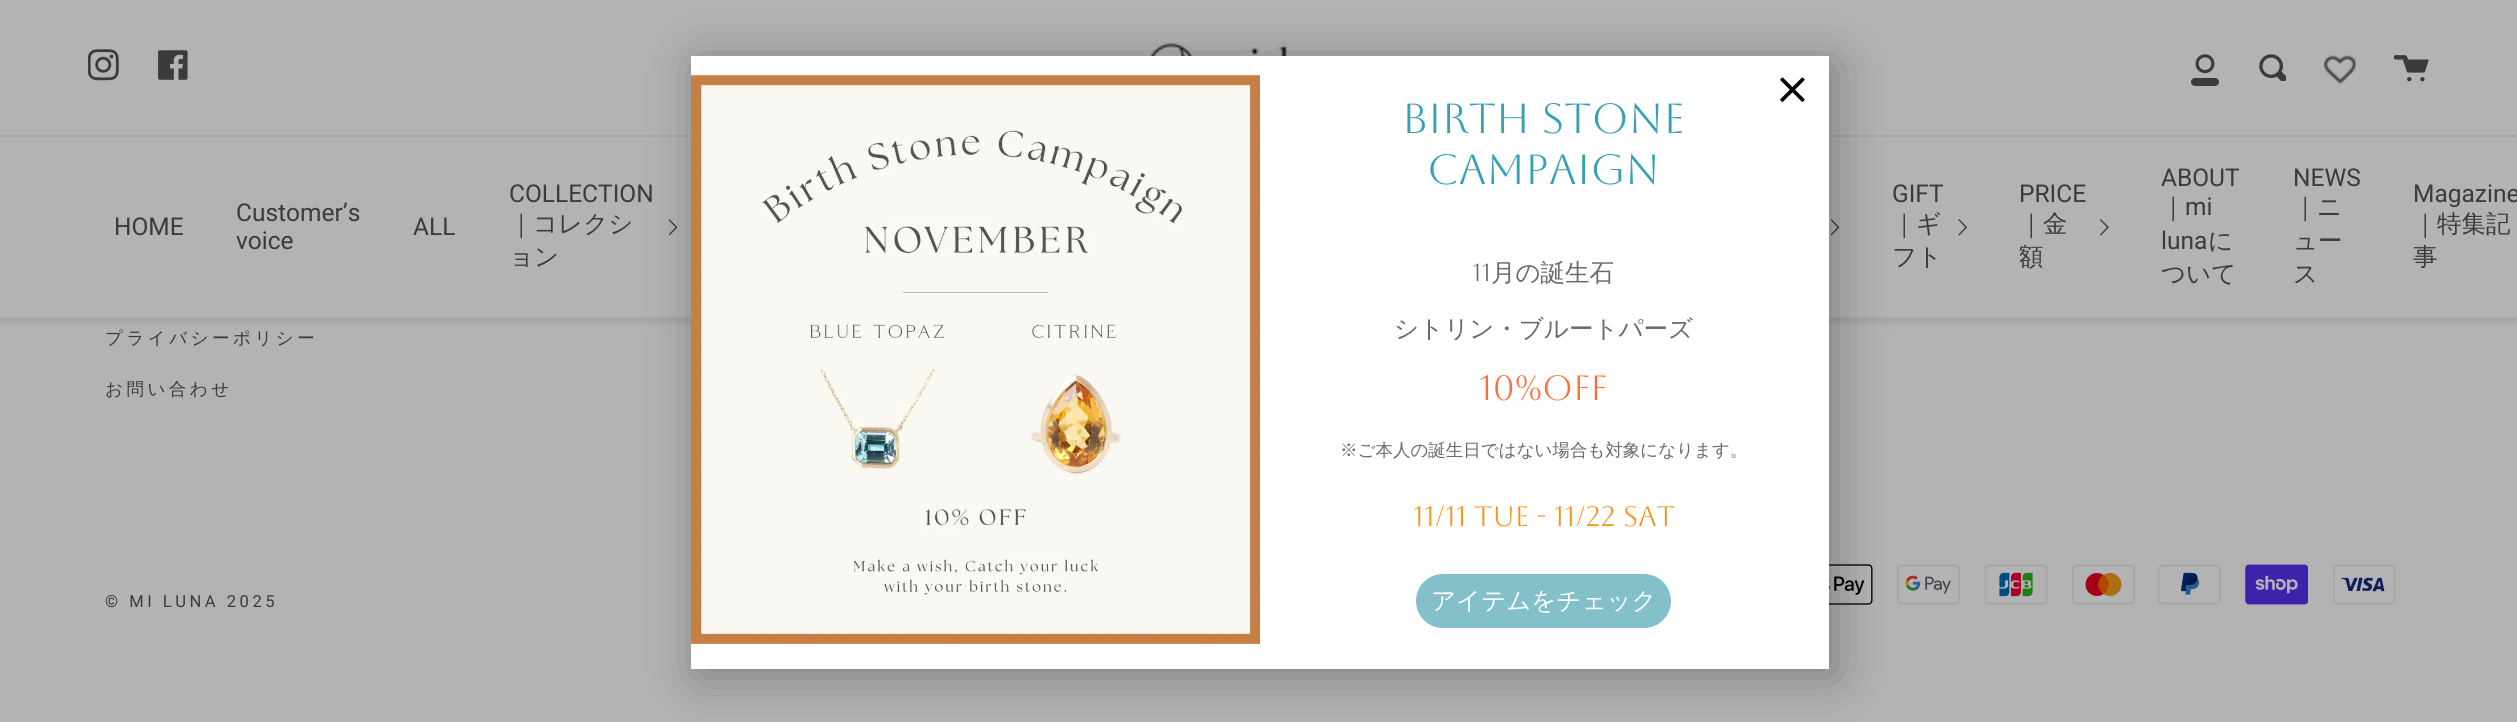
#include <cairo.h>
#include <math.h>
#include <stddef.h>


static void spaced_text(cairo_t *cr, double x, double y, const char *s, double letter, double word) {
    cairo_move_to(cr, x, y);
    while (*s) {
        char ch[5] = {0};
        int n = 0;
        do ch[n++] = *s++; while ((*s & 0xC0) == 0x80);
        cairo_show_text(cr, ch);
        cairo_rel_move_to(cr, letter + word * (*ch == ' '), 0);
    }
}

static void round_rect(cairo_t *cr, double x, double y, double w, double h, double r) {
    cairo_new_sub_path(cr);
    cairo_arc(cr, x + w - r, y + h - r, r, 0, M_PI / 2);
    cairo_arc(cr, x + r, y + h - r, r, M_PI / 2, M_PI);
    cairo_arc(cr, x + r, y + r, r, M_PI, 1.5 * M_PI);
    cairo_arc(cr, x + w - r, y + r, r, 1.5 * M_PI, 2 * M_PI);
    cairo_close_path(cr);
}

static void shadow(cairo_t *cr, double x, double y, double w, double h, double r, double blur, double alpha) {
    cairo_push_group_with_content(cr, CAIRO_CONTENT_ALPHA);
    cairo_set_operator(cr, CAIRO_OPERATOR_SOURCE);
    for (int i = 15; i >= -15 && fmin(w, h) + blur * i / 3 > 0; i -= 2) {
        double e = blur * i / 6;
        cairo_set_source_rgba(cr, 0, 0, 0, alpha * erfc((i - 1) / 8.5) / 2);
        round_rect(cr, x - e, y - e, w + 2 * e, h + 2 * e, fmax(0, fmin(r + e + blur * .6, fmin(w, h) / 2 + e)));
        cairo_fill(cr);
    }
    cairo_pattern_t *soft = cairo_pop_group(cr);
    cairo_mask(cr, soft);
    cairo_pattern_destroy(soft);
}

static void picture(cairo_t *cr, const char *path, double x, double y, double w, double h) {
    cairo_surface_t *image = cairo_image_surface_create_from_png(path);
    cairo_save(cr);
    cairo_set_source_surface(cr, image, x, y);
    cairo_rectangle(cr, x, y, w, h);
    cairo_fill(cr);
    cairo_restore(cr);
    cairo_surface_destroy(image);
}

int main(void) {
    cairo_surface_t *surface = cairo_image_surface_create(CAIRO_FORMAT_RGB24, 2517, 722);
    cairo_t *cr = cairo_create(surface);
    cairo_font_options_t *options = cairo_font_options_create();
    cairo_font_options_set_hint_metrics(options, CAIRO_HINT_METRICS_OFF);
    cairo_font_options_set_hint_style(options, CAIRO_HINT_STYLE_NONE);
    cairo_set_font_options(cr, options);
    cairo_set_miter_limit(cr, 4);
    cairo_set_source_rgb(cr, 0.702, 0.702, 0.702);
    cairo_paint(cr);
    cairo_set_source_rgb(cr, 0, 0, 0);
    shadow(cr, 0, 4, 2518, 318, 0, 4.5, 0.1);
    cairo_set_source_rgb(cr, 0.702, 0.702, 0.702);
    cairo_rectangle(cr, 0, 0, 2517, 317);
    cairo_fill(cr);
    cairo_set_source_rgb(cr, 0.659, 0.659, 0.659);
    cairo_rectangle(cr, 0, 317, 2517, 2);
    cairo_fill(cr);
    picture(cr, "img5.png", 1147, 43, 226, 13);
    cairo_rectangle(cr, 0, 135, 2517, 2);
    cairo_fill(cr);
    picture(cr, "img10.png", 669, 219, 8, 17);
    picture(cr, "img10.png", 1831, 219, 8, 17);
    picture(cr, "img13.png", 1829, 564, 44, 41);
    picture(cr, "img14.png", 1897, 564, 63, 41);
    cairo_set_source_rgb(cr, 0, 0, 0);
    shadow(cr, 698, 63, 1138, 613, 0, 26, 0.3);
    cairo_set_source_rgb(cr, 1, 1, 1);
    cairo_rectangle(cr, 691, 56, 1138, 613);
    cairo_fill(cr);
    picture(cr, "img1.png", 1780, 77, 25, 25);
    picture(cr, "img2.png", 691, 75, 569, 569);
    cairo_select_font_face(cr, "Aboreto", CAIRO_FONT_SLANT_NORMAL, CAIRO_FONT_WEIGHT_NORMAL);
    cairo_set_font_size(cr, 42);
    cairo_set_source_rgb(cr, 0.212, 0.631, 0.71);
    cairo_move_to(cr, 1402, 133);
    cairo_show_text(cr, "Birth Stone");
    cairo_move_to(cr, 1427, 184);
    cairo_show_text(cr, "Campaign");
    cairo_set_font_size(cr, 24.5);
    cairo_set_source_rgb(cr, 0.412, 0.412, 0.412);
    cairo_move_to(cr, 1472, 281);
    cairo_show_text(cr, "11");
    cairo_select_font_face(cr, "WenQuanYi Zen Hei Medium", CAIRO_FONT_SLANT_NORMAL, CAIRO_FONT_WEIGHT_NORMAL);
    cairo_move_to(cr, 1491, 281);
    cairo_show_text(cr, "月の誕生石");
    cairo_move_to(cr, 1394, 337);
    cairo_show_text(cr, "シトリン・ブルートパーズ");
    cairo_select_font_face(cr, "Aboreto", CAIRO_FONT_SLANT_NORMAL, CAIRO_FONT_WEIGHT_NORMAL);
    cairo_set_font_size(cr, 35);
    cairo_set_source_rgb(cr, 1, 0.427, 0.216);
    cairo_move_to(cr, 1479, 400);
    cairo_show_text(cr, "10%OFF");
    cairo_select_font_face(cr, "WenQuanYi Zen Hei Medium", CAIRO_FONT_SLANT_NORMAL, CAIRO_FONT_WEIGHT_NORMAL);
    cairo_set_font_size(cr, 17.5);
    cairo_set_source_rgb(cr, 0.412, 0.412, 0.412);
    cairo_move_to(cr, 1340, 456);
    cairo_show_text(cr, "※ご本人の誕生日ではない場合も対象になります。");
    cairo_select_font_face(cr, "Aboreto", CAIRO_FONT_SLANT_NORMAL, CAIRO_FONT_WEIGHT_NORMAL);
    cairo_set_font_size(cr, 28);
    cairo_set_source_rgb(cr, 0.984, 0.561, 0.055);
    cairo_move_to(cr, 1413, 526);
    cairo_show_text(cr, "11/11 TUE - 11/22 SAT");
    cairo_set_source_rgb(cr, 0.518, 0.753, 0.792);
    round_rect(cr, 1417, 575, 253, 52, 26);
    cairo_fill_preserve(cr);
    cairo_stroke(cr);
    cairo_select_font_face(cr, "WenQuanYi Zen Hei Medium", CAIRO_FONT_SLANT_NORMAL, CAIRO_FONT_WEIGHT_NORMAL);
    cairo_set_font_size(cr, 24.5);
    cairo_set_source_rgb(cr, 1, 1, 1);
    cairo_move_to(cr, 1431, 609);
    cairo_show_text(cr, "アイテムをチェック");
    picture(cr, "img3.png", 88, 49, 31, 32);
    picture(cr, "img4.png", 158, 50, 30, 30);
    picture(cr, "img6.png", 2191, 54, 28, 32);
    picture(cr, "img7.png", 2259, 54, 27, 27);
    picture(cr, "img8.png", 2324, 55, 32, 29);
    picture(cr, "img9.png", 2394, 55, 35, 27);
    cairo_select_font_face(cr, "Roboto", CAIRO_FONT_SLANT_NORMAL, CAIRO_FONT_WEIGHT_NORMAL);
    cairo_set_source_rgb(cr, 0.231, 0.231, 0.231);
    cairo_move_to(cr, 114, 235);
    cairo_show_text(cr, "HOME");
    cairo_move_to(cr, 236, 221);
    cairo_show_text(cr, "Customer’s");
    cairo_move_to(cr, 236, 249);
    cairo_show_text(cr, "voice");
    cairo_move_to(cr, 413, 235);
    cairo_show_text(cr, "ALL");
    cairo_move_to(cr, 509, 202);
    cairo_show_text(cr, "COLLECTION");
    cairo_select_font_face(cr, "WenQuanYi Zen Hei Medium", CAIRO_FONT_SLANT_NORMAL, CAIRO_FONT_WEIGHT_NORMAL);
    cairo_move_to(cr, 509, 232);
    cairo_show_text(cr, "｜コレクシ");
    cairo_move_to(cr, 509, 265);
    cairo_show_text(cr, "ョン");
    cairo_select_font_face(cr, "Roboto", CAIRO_FONT_SLANT_NORMAL, CAIRO_FONT_WEIGHT_NORMAL);
    cairo_move_to(cr, 1892, 202);
    cairo_show_text(cr, "GIFT");
    cairo_select_font_face(cr, "WenQuanYi Zen Hei Medium", CAIRO_FONT_SLANT_NORMAL, CAIRO_FONT_WEIGHT_NORMAL);
    cairo_move_to(cr, 1892, 232);
    cairo_show_text(cr, "｜ギ");
    cairo_move_to(cr, 1892, 265);
    cairo_show_text(cr, "フト");
    picture(cr, "img11.png", 1958, 219, 9, 17);
    cairo_select_font_face(cr, "Roboto", CAIRO_FONT_SLANT_NORMAL, CAIRO_FONT_WEIGHT_NORMAL);
    cairo_move_to(cr, 2019, 202);
    cairo_show_text(cr, "PRICE");
    cairo_select_font_face(cr, "WenQuanYi Zen Hei Medium", CAIRO_FONT_SLANT_NORMAL, CAIRO_FONT_WEIGHT_NORMAL);
    cairo_move_to(cr, 2019, 232);
    cairo_show_text(cr, "｜金");
    cairo_move_to(cr, 2019, 265);
    cairo_show_text(cr, "額");
    picture(cr, "img12.png", 2100, 219, 9, 17);
    cairo_select_font_face(cr, "Roboto", CAIRO_FONT_SLANT_NORMAL, CAIRO_FONT_WEIGHT_NORMAL);
    cairo_move_to(cr, 2161, 186);
    cairo_show_text(cr, "ABOUT");
    cairo_select_font_face(cr, "WenQuanYi Zen Hei Medium", CAIRO_FONT_SLANT_NORMAL, CAIRO_FONT_WEIGHT_NORMAL);
    cairo_move_to(cr, 2161, 215);
    cairo_show_text(cr, "｜");
    cairo_select_font_face(cr, "Roboto", CAIRO_FONT_SLANT_NORMAL, CAIRO_FONT_WEIGHT_NORMAL);
    cairo_move_to(cr, 2185, 215);
    cairo_show_text(cr, "mi");
    cairo_move_to(cr, 2161, 249);
    cairo_show_text(cr, "luna");
    cairo_select_font_face(cr, "WenQuanYi Zen Hei Medium", CAIRO_FONT_SLANT_NORMAL, CAIRO_FONT_WEIGHT_NORMAL);
    cairo_move_to(cr, 2208, 249);
    cairo_show_text(cr, "に");
    cairo_move_to(cr, 2161, 282);
    cairo_show_text(cr, "ついて");
    cairo_select_font_face(cr, "Roboto", CAIRO_FONT_SLANT_NORMAL, CAIRO_FONT_WEIGHT_NORMAL);
    cairo_move_to(cr, 2293, 186);
    cairo_show_text(cr, "NEWS");
    cairo_select_font_face(cr, "WenQuanYi Zen Hei Medium", CAIRO_FONT_SLANT_NORMAL, CAIRO_FONT_WEIGHT_NORMAL);
    cairo_move_to(cr, 2293, 215);
    cairo_show_text(cr, "｜ニ");
    cairo_move_to(cr, 2293, 249);
    cairo_show_text(cr, "ュー");
    cairo_move_to(cr, 2293, 282);
    cairo_show_text(cr, "ス");
    cairo_select_font_face(cr, "Roboto", CAIRO_FONT_SLANT_NORMAL, CAIRO_FONT_WEIGHT_NORMAL);
    cairo_move_to(cr, 2413, 202);
    cairo_show_text(cr, "Magazine");
    cairo_select_font_face(cr, "WenQuanYi Zen Hei Medium", CAIRO_FONT_SLANT_NORMAL, CAIRO_FONT_WEIGHT_NORMAL);
    cairo_move_to(cr, 2413, 232);
    cairo_show_text(cr, "｜特集記");
    cairo_move_to(cr, 2413, 265);
    cairo_show_text(cr, "事");
    cairo_set_font_size(cr, 17.5);
    spaced_text(cr, 105, 344, "プライバシーポリシー", 3.5, 0);
    spaced_text(cr, 105, 395, "お問い合わせ", 3.5, 0);
    cairo_select_font_face(cr, "Roboto", CAIRO_FONT_SLANT_NORMAL, CAIRO_FONT_WEIGHT_NORMAL);
    cairo_set_font_size(cr, 16.6);
    spaced_text(cr, 105, 607, "© MI LUNA 2025", 3.5, 0);
    picture(cr, "img15.png", 1985, 564, 63, 41);
    picture(cr, "img16.png", 2072, 564, 63, 41);
    picture(cr, "img17.png", 2158, 564, 63, 41);
    picture(cr, "img18.png", 2245, 564, 63, 41);
    picture(cr, "img19.png", 2333, 564, 63, 41);
    cairo_surface_write_to_png(surface, "page.png");
    cairo_font_options_destroy(options);
    cairo_destroy(cr);
    cairo_surface_destroy(surface);
    return 0;
}
